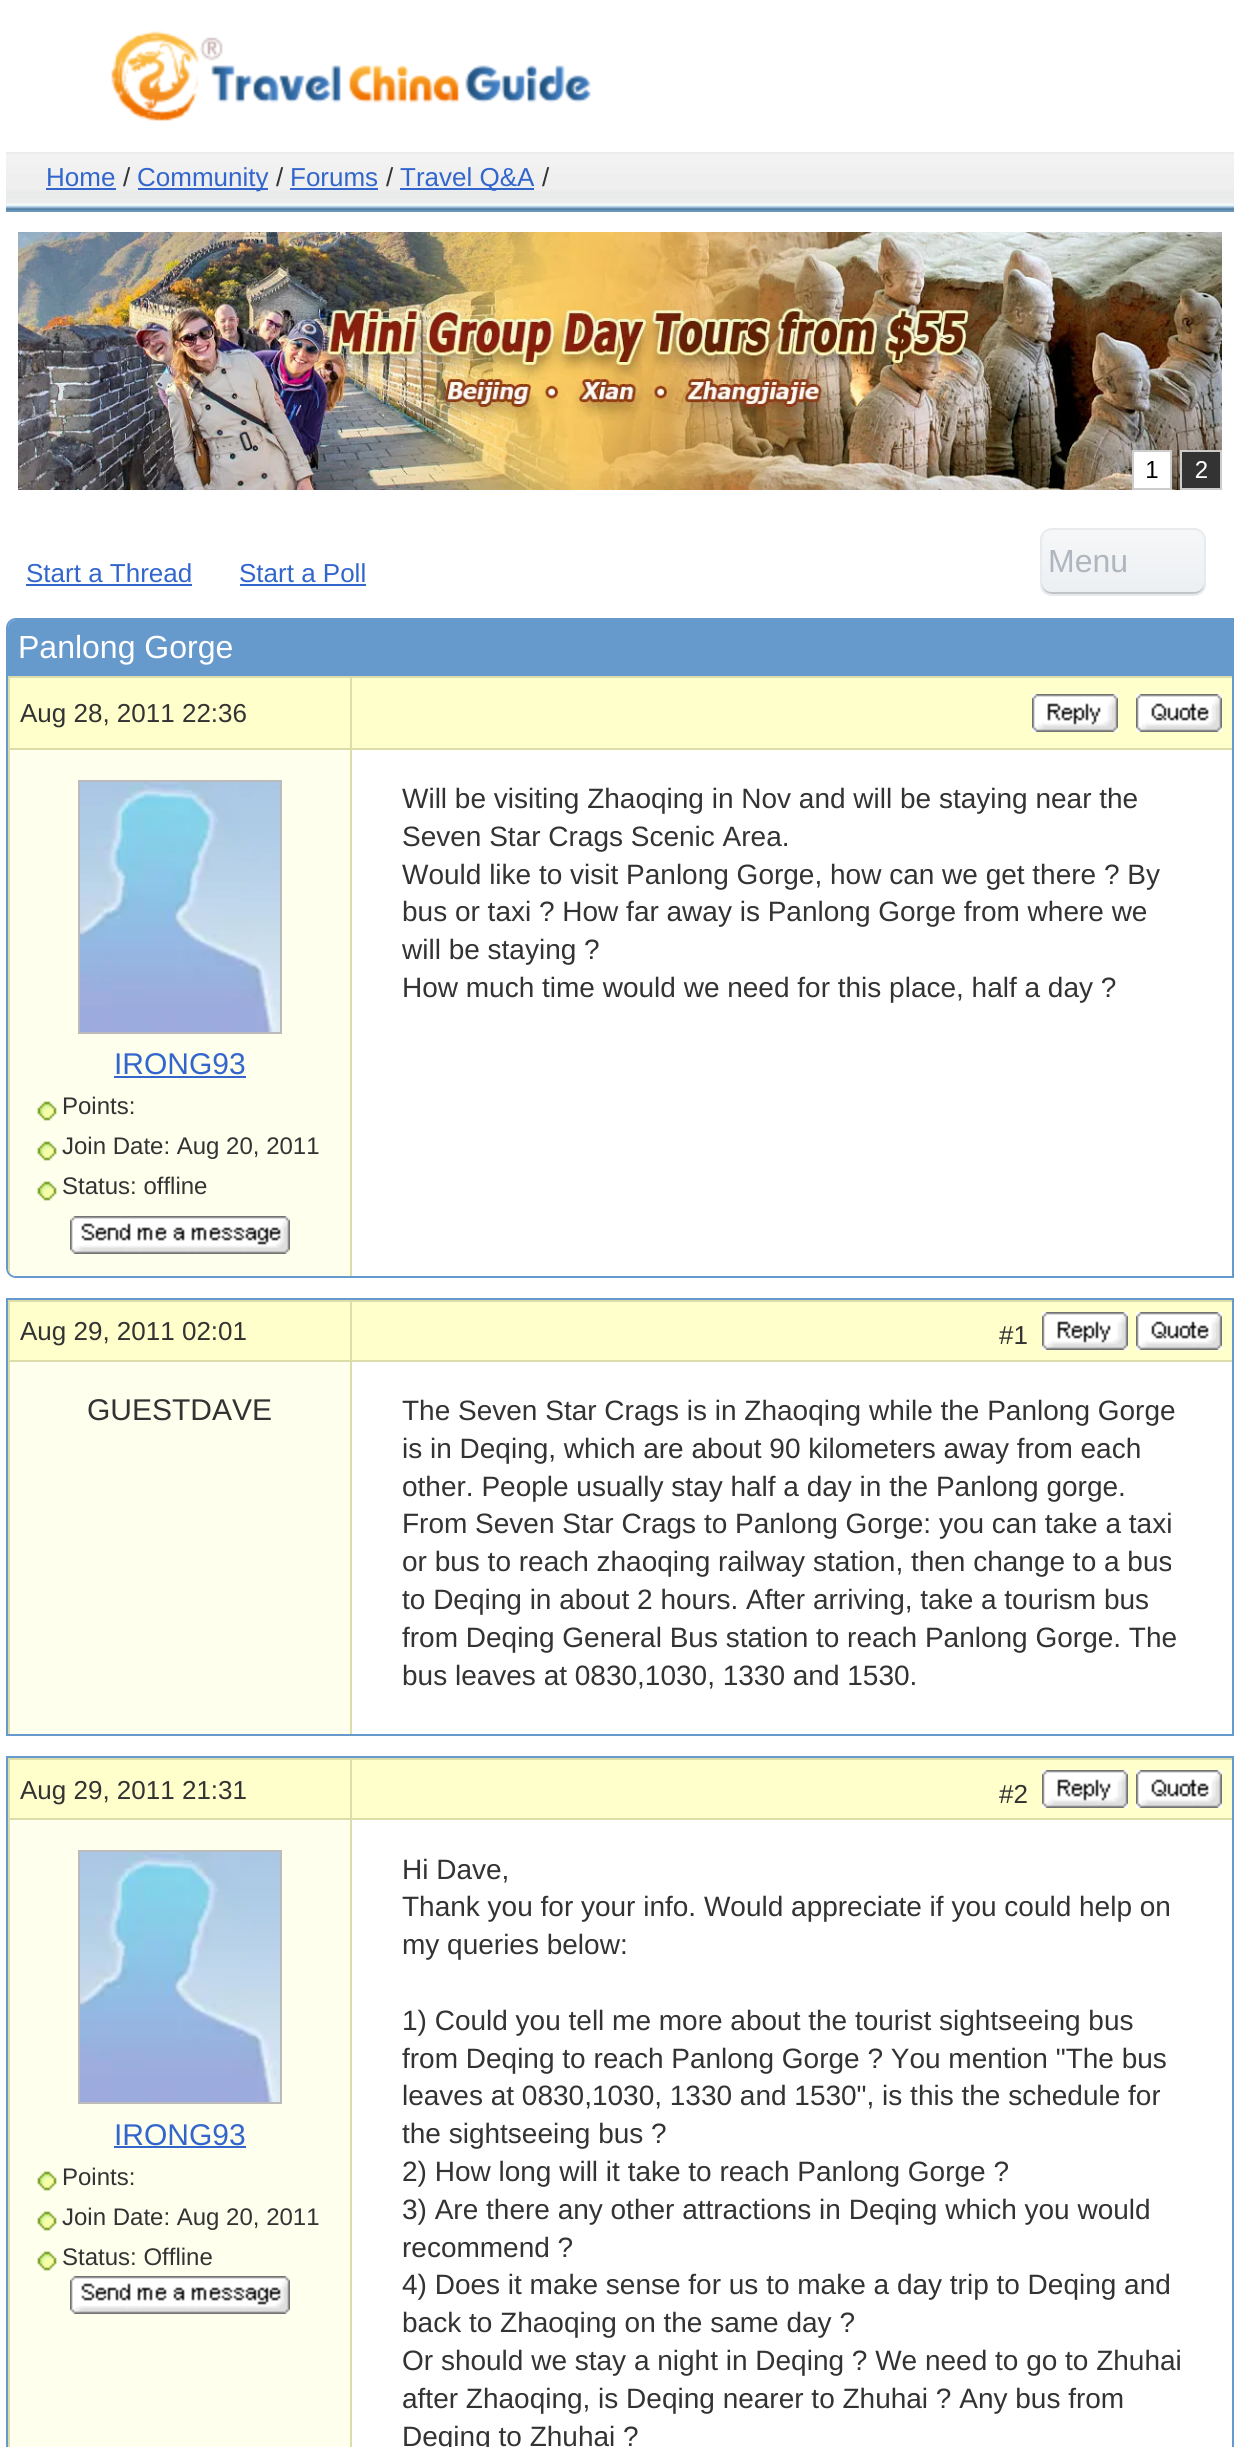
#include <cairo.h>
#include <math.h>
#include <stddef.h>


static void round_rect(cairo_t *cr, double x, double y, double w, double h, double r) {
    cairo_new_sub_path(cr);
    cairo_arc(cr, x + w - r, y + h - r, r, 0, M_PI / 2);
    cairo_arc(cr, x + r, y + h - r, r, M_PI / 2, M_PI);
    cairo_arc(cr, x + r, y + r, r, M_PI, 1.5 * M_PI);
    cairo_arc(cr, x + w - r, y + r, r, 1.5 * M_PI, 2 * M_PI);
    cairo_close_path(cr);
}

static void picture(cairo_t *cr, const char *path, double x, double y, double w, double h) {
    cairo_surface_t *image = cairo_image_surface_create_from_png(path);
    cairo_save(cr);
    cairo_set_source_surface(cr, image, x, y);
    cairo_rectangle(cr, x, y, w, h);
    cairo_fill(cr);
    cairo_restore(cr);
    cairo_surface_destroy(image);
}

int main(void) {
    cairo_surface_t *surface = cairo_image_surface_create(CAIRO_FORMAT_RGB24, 1240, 2447);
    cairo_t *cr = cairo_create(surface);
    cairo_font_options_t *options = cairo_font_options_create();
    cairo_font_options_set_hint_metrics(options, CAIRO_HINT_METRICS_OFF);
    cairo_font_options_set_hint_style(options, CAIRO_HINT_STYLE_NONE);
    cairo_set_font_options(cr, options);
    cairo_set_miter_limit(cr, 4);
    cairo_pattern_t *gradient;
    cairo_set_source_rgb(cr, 1, 1, 1);
    cairo_paint(cr);
    picture(cr, "img1.png", 111, 31, 480, 90);
    picture(cr, "img2.png", 6, 154, 1228, 58);
    cairo_set_source_rgb(cr, 0.922, 0.922, 0.922);
    cairo_rectangle(cr, 6, 152, 1228, 2);
    cairo_fill(cr);
    cairo_select_font_face(cr, "Liberation Sans", CAIRO_FONT_SLANT_NORMAL, CAIRO_FONT_WEIGHT_NORMAL);
    cairo_set_font_size(cr, 26);
    cairo_set_source_rgb(cr, 0.2, 0.4, 0.8);
    cairo_move_to(cr, 46, 186);
    cairo_show_text(cr, "Home");
    cairo_rectangle(cr, 46, 188, 70, 2);
    cairo_fill(cr);
    cairo_set_source_rgb(cr, 0.2, 0.2, 0.2);
    cairo_move_to(cr, 123, 186);
    cairo_show_text(cr, "/");
    cairo_set_source_rgb(cr, 0.2, 0.4, 0.8);
    cairo_rectangle(cr, 138, 188, 130, 2);
    cairo_fill(cr);
    cairo_move_to(cr, 137, 186);
    cairo_show_text(cr, "Community");
    cairo_set_source_rgb(cr, 0.2, 0.2, 0.2);
    cairo_move_to(cr, 276, 186);
    cairo_show_text(cr, "/");
    cairo_set_source_rgb(cr, 0.2, 0.4, 0.8);
    cairo_move_to(cr, 290, 186);
    cairo_show_text(cr, "Forums");
    cairo_rectangle(cr, 290, 188, 88, 2);
    cairo_fill(cr);
    cairo_set_source_rgb(cr, 0.2, 0.2, 0.2);
    cairo_move_to(cr, 386, 186);
    cairo_show_text(cr, "/");
    cairo_set_source_rgb(cr, 0.2, 0.4, 0.8);
    cairo_rectangle(cr, 400, 188, 134, 2);
    cairo_fill(cr);
    cairo_move_to(cr, 400, 186);
    cairo_show_text(cr, "Travel Q&A");
    cairo_set_source_rgb(cr, 0.2, 0.2, 0.2);
    cairo_move_to(cr, 542, 186);
    cairo_show_text(cr, "/");
    picture(cr, "img3.png", 18, 232, 1204, 258);
    cairo_save(cr);
    round_rect(cr, 1040, 528, 166, 68, 12);
    cairo_clip(cr);
    gradient = cairo_pattern_create_linear(1123, 530, 1123, 594);
    cairo_pattern_add_color_stop_rgba(gradient, 0, 0.965, 0.969, 0.976, 1);
    cairo_pattern_add_color_stop_rgba(gradient, 1, 0.925, 0.937, 0.949, 1);
    cairo_set_source(cr, gradient);
    cairo_pattern_destroy(gradient);
    cairo_rectangle(cr, 1040, 530, 166, 64);
    cairo_fill(cr);
    cairo_restore(cr);
    cairo_set_source_rgb(cr, 0.761, 0.769, 0.776);
    cairo_new_path(cr);
    cairo_move_to(cr, 1042, 582);
    cairo_line_to(cr, 1042, 584);
    cairo_curve_to(cr, 1042, 590, 1046, 594, 1052, 594);
    cairo_line_to(cr, 1194, 594);
    cairo_curve_to(cr, 1200, 594, 1204, 590, 1204, 584);
    cairo_line_to(cr, 1204, 582);
    cairo_curve_to(cr, 1204, 588, 1200, 592, 1194, 592);
    cairo_line_to(cr, 1052, 592);
    cairo_curve_to(cr, 1046, 592, 1042, 588, 1042, 582);
    cairo_close_path(cr);
    cairo_fill(cr);
    round_rect(cr, 1041, 529, 164, 66, 11);
    cairo_set_source_rgb(cr, 0.906, 0.918, 0.933);
    cairo_stroke(cr);
    cairo_set_font_size(cr, 32);
    cairo_set_source_rgb(cr, 0.686, 0.714, 0.741);
    cairo_move_to(cr, 1048, 572);
    cairo_show_text(cr, "Menu");
    cairo_set_font_size(cr, 26);
    cairo_set_source_rgb(cr, 0.2, 0.4, 0.8);
    cairo_move_to(cr, 26, 582);
    cairo_show_text(cr, "Start a Thread");
    cairo_rectangle(cr, 26, 584, 166, 2);
    cairo_fill(cr);
    cairo_move_to(cr, 239, 582);
    cairo_show_text(cr, "Start a Poll");
    cairo_rectangle(cr, 240, 584, 126, 2);
    cairo_fill(cr);
    cairo_new_path(cr);
    cairo_move_to(cr, 16, 619);
    cairo_line_to(cr, 1233, 619);
    cairo_line_to(cr, 1233, 1277);
    cairo_line_to(cr, 16, 1277);
    cairo_curve_to(cr, 11, 1277, 7, 1273, 7, 1268);
    cairo_line_to(cr, 7, 628);
    cairo_curve_to(cr, 7, 623, 11, 619, 16, 619);
    cairo_close_path(cr);
    cairo_set_source_rgb(cr, 0.4, 0.6, 0.8);
    cairo_stroke(cr);
    cairo_new_path(cr);
    cairo_move_to(cr, 16, 620);
    cairo_line_to(cr, 1232, 620);
    cairo_line_to(cr, 1232, 676);
    cairo_line_to(cr, 8, 676);
    cairo_line_to(cr, 8, 628);
    cairo_curve_to(cr, 8, 623.5, 11.5, 620, 16, 620);
    cairo_close_path(cr);
    cairo_fill(cr);
    cairo_set_font_size(cr, 32);
    cairo_set_source_rgb(cr, 1, 1, 1);
    cairo_move_to(cr, 18, 658);
    cairo_show_text(cr, "Panlong Gorge");
    cairo_set_source_rgb(cr, 1, 1, 0.8);
    cairo_rectangle(cr, 10, 678, 340, 70);
    cairo_fill(cr);
    cairo_set_source_rgb(cr, 0.867, 0.867, 0.667);
    cairo_rectangle(cr, 8, 676, 1224, 2);
    cairo_fill(cr);
    cairo_rectangle(cr, 8, 676, 2, 72);
    cairo_fill(cr);
    cairo_set_font_size(cr, 26);
    cairo_set_source_rgb(cr, 0.2, 0.2, 0.2);
    cairo_move_to(cr, 20, 722);
    cairo_show_text(cr, "Aug 28, 2011 22:36");
    cairo_set_source_rgb(cr, 1, 1, 0.8);
    cairo_rectangle(cr, 352, 678, 880, 70);
    cairo_fill(cr);
    cairo_set_source_rgb(cr, 0.867, 0.867, 0.667);
    cairo_rectangle(cr, 350, 676, 2, 72);
    cairo_fill(cr);
    picture(cr, "img4.png", 1032, 694, 86, 38);
    picture(cr, "img5.png", 1136, 694, 86, 38);
    cairo_rectangle(cr, 8, 748, 1224, 2);
    cairo_fill(cr);
    cairo_rectangle(cr, 350, 748, 2, 528);
    cairo_fill(cr);
    cairo_set_font_size(cr, 28);
    cairo_set_source_rgb(cr, 0.2, 0.2, 0.2);
    cairo_move_to(cr, 402, 808);
    cairo_show_text(cr, "Will be visiting Zhaoqing in Nov and will be staying near the");
    cairo_move_to(cr, 402, 846);
    cairo_show_text(cr, "Seven Star Crags Scenic Area.");
    cairo_move_to(cr, 402, 884);
    cairo_show_text(cr, "Would like to visit Panlong Gorge, how can we get there ? By");
    cairo_move_to(cr, 402, 921);
    cairo_show_text(cr, "bus or taxi ? How far away is Panlong Gorge from where we");
    cairo_move_to(cr, 402, 959);
    cairo_show_text(cr, "will be staying ?");
    cairo_move_to(cr, 402, 997);
    cairo_show_text(cr, "How much time would we need for this place, half a day ?");
    cairo_save(cr);
    cairo_new_path(cr);
    cairo_move_to(cr, 16, 620);
    cairo_line_to(cr, 1232, 620);
    cairo_line_to(cr, 1232, 1276);
    cairo_line_to(cr, 16, 1276);
    cairo_curve_to(cr, 11.5, 1276, 8, 1272.5, 8, 1268);
    cairo_line_to(cr, 8, 628);
    cairo_curve_to(cr, 8, 623.5, 11.5, 620, 16, 620);
    cairo_close_path(cr);
    cairo_clip(cr);
    cairo_set_source_rgb(cr, 1, 1, 0.933);
    cairo_rectangle(cr, 10, 750, 340, 526);
    cairo_fill(cr);
    cairo_set_source_rgb(cr, 0.867, 0.867, 0.667);
    cairo_rectangle(cr, 8, 748, 2, 528);
    cairo_fill(cr);
    cairo_restore(cr);
    cairo_rectangle(cr, 79, 781, 202, 252);
    cairo_set_source_rgb(cr, 0.733, 0.733, 0.733);
    cairo_stroke(cr);
    picture(cr, "img6.png", 80, 782, 200, 250);
    cairo_set_font_size(cr, 30);
    cairo_set_source_rgb(cr, 0.2, 0.4, 0.8);
    cairo_move_to(cr, 114, 1074);
    cairo_show_text(cr, "IRONG93");
    cairo_rectangle(cr, 114, 1076, 132, 2);
    cairo_fill(cr);
    picture(cr, "img7.png", 37, 1101, 20, 20);
    cairo_set_font_size(cr, 24);
    cairo_set_source_rgb(cr, 0.2, 0.2, 0.2);
    cairo_move_to(cr, 62, 1114);
    cairo_show_text(cr, "Points:");
    picture(cr, "img7.png", 37, 1141, 20, 20);
    cairo_move_to(cr, 62, 1154);
    cairo_show_text(cr, "Join Date: Aug 20, 2011");
    picture(cr, "img7.png", 37, 1181, 20, 20);
    cairo_move_to(cr, 62, 1194);
    cairo_show_text(cr, "Status: offline");
    picture(cr, "img8.png", 70, 1216, 220, 38);
    cairo_rectangle(cr, 7, 1299, 1226, 436);
    cairo_set_source_rgb(cr, 0.4, 0.6, 0.8);
    cairo_stroke(cr);
    cairo_set_source_rgb(cr, 1, 1, 0.8);
    cairo_rectangle(cr, 10, 1302, 340, 58);
    cairo_fill(cr);
    cairo_set_source_rgb(cr, 0.867, 0.867, 0.667);
    cairo_rectangle(cr, 8, 1300, 1224, 2);
    cairo_fill(cr);
    cairo_rectangle(cr, 8, 1300, 2, 60);
    cairo_fill(cr);
    cairo_set_font_size(cr, 26);
    cairo_set_source_rgb(cr, 0.2, 0.2, 0.2);
    cairo_move_to(cr, 20, 1340);
    cairo_show_text(cr, "Aug 29, 2011 02:01");
    cairo_set_source_rgb(cr, 1, 1, 0.8);
    cairo_rectangle(cr, 352, 1302, 880, 58);
    cairo_fill(cr);
    cairo_set_source_rgb(cr, 0.867, 0.867, 0.667);
    cairo_rectangle(cr, 350, 1300, 2, 60);
    cairo_fill(cr);
    cairo_set_source_rgb(cr, 0.2, 0.2, 0.2);
    cairo_move_to(cr, 999, 1344);
    cairo_show_text(cr, "#1");
    picture(cr, "img4.png", 1042, 1312, 86, 38);
    picture(cr, "img5.png", 1136, 1312, 86, 38);
    cairo_set_source_rgb(cr, 1, 1, 0.933);
    cairo_rectangle(cr, 10, 1362, 340, 372);
    cairo_fill(cr);
    cairo_set_source_rgb(cr, 0.867, 0.867, 0.667);
    cairo_rectangle(cr, 8, 1360, 1224, 2);
    cairo_fill(cr);
    cairo_rectangle(cr, 8, 1360, 2, 374);
    cairo_fill(cr);
    cairo_set_font_size(cr, 30);
    cairo_set_source_rgb(cr, 0.2, 0.2, 0.2);
    cairo_move_to(cr, 87, 1420);
    cairo_show_text(cr, "GUESTDAVE");
    cairo_set_source_rgb(cr, 0.867, 0.867, 0.667);
    cairo_rectangle(cr, 350, 1360, 2, 374);
    cairo_fill(cr);
    cairo_set_font_size(cr, 28);
    cairo_set_source_rgb(cr, 0.2, 0.2, 0.2);
    cairo_move_to(cr, 402, 1420);
    cairo_show_text(cr, "The Seven Star Crags is in Zhaoqing while the Panlong Gorge");
    cairo_move_to(cr, 402, 1458);
    cairo_show_text(cr, "is in Deqing, which are about 90 kilometers away from each");
    cairo_move_to(cr, 402, 1496);
    cairo_show_text(cr, "other. People usually stay half a day in the Panlong gorge.");
    cairo_move_to(cr, 402, 1533);
    cairo_show_text(cr, "From Seven Star Crags to Panlong Gorge: you can take a taxi");
    cairo_move_to(cr, 402, 1571);
    cairo_show_text(cr, "or bus to reach zhaoqing railway station, then change to a bus");
    cairo_move_to(cr, 402, 1609);
    cairo_show_text(cr, "to Deqing in about 2 hours. After arriving, take a tourism bus");
    cairo_move_to(cr, 402, 1647);
    cairo_show_text(cr, "from Deqing General Bus station to reach Panlong Gorge. The");
    cairo_move_to(cr, 402, 1685);
    cairo_show_text(cr, "bus leaves at 0830,1030, 1330 and 1530.");
    cairo_rectangle(cr, 7, 1757, 1226, 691);
    cairo_set_source_rgb(cr, 0.4, 0.6, 0.8);
    cairo_stroke(cr);
    cairo_set_source_rgb(cr, 1, 1, 0.8);
    cairo_rectangle(cr, 10, 1760, 340, 58);
    cairo_fill(cr);
    cairo_set_source_rgb(cr, 0.867, 0.867, 0.667);
    cairo_rectangle(cr, 8, 1758, 1224, 2);
    cairo_fill(cr);
    cairo_rectangle(cr, 8, 1758, 2, 60);
    cairo_fill(cr);
    cairo_set_font_size(cr, 26);
    cairo_set_source_rgb(cr, 0.2, 0.2, 0.2);
    cairo_move_to(cr, 20, 1799);
    cairo_show_text(cr, "Aug 29, 2011 21:31");
    cairo_set_source_rgb(cr, 1, 1, 0.8);
    cairo_rectangle(cr, 352, 1760, 880, 58);
    cairo_fill(cr);
    cairo_set_source_rgb(cr, 0.867, 0.867, 0.667);
    cairo_rectangle(cr, 350, 1758, 2, 60);
    cairo_fill(cr);
    cairo_set_source_rgb(cr, 0.2, 0.2, 0.2);
    cairo_move_to(cr, 999, 1803);
    cairo_show_text(cr, "#2");
    picture(cr, "img4.png", 1042, 1770, 86, 38);
    picture(cr, "img5.png", 1136, 1770, 86, 38);
    cairo_set_source_rgb(cr, 1, 1, 0.933);
    cairo_rectangle(cr, 10, 1820, 340, 627);
    cairo_fill(cr);
    cairo_set_source_rgb(cr, 0.867, 0.867, 0.667);
    cairo_rectangle(cr, 8, 1818, 1224, 2);
    cairo_fill(cr);
    cairo_rectangle(cr, 8, 1818, 2, 629);
    cairo_fill(cr);
    cairo_rectangle(cr, 79, 1851, 202, 252);
    cairo_set_source_rgb(cr, 0.733, 0.733, 0.733);
    cairo_stroke(cr);
    picture(cr, "img6.png", 80, 1852, 200, 250);
    cairo_set_font_size(cr, 30);
    cairo_set_source_rgb(cr, 0.2, 0.4, 0.8);
    cairo_move_to(cr, 114, 2145);
    cairo_show_text(cr, "IRONG93");
    cairo_rectangle(cr, 114, 2146, 132, 2);
    cairo_fill(cr);
    picture(cr, "img7.png", 37, 2171, 20, 20);
    cairo_set_font_size(cr, 24);
    cairo_set_source_rgb(cr, 0.2, 0.2, 0.2);
    cairo_move_to(cr, 62, 2185);
    cairo_show_text(cr, "Points:");
    picture(cr, "img7.png", 37, 2211, 20, 20);
    cairo_move_to(cr, 62, 2225);
    cairo_show_text(cr, "Join Date: Aug 20, 2011");
    picture(cr, "img7.png", 37, 2251, 20, 20);
    cairo_move_to(cr, 62, 2265);
    cairo_show_text(cr, "Status: Offline");
    picture(cr, "img8.png", 70, 2276, 220, 38);
    cairo_set_source_rgb(cr, 0.867, 0.867, 0.667);
    cairo_rectangle(cr, 350, 1818, 2, 629);
    cairo_fill(cr);
    cairo_set_font_size(cr, 28);
    cairo_set_source_rgb(cr, 0.2, 0.2, 0.2);
    cairo_move_to(cr, 402, 1879);
    cairo_show_text(cr, "Hi Dave,");
    cairo_move_to(cr, 402, 1916);
    cairo_show_text(cr, "Thank you for your info. Would appreciate if you could help on");
    cairo_move_to(cr, 402, 1954);
    cairo_show_text(cr, "my queries below:");
    cairo_move_to(cr, 402, 2030);
    cairo_show_text(cr, "1) Could you tell me more about the tourist sightseeing bus");
    cairo_move_to(cr, 402, 2068);
    cairo_show_text(cr, "from Deqing to reach Panlong Gorge ? You mention \"The bus");
    cairo_move_to(cr, 402, 2105);
    cairo_show_text(cr, "leaves at 0830,1030, 1330 and 1530\", is this the schedule for");
    cairo_move_to(cr, 402, 2143);
    cairo_show_text(cr, "the sightseeing bus ?");
    cairo_move_to(cr, 402, 2181);
    cairo_show_text(cr, "2) How long will it take to reach Panlong Gorge ?");
    cairo_move_to(cr, 402, 2219);
    cairo_show_text(cr, "3) Are there any other attractions in Deqing which you would");
    cairo_move_to(cr, 402, 2257);
    cairo_show_text(cr, "recommend ?");
    cairo_move_to(cr, 402, 2294);
    cairo_show_text(cr, "4) Does it make sense for us to make a day trip to Deqing and");
    cairo_move_to(cr, 402, 2332);
    cairo_show_text(cr, "back to Zhaoqing on the same day ?");
    cairo_move_to(cr, 402, 2370);
    cairo_show_text(cr, "Or should we stay a night in Deqing ? We need to go to Zhuhai");
    cairo_move_to(cr, 402, 2408);
    cairo_show_text(cr, "after Zhaoqing, is Deqing nearer to Zhuhai ? Any bus from");
    cairo_move_to(cr, 402, 2446);
    cairo_show_text(cr, "Deqing to Zhuhai ?");
    cairo_surface_write_to_png(surface, "page.png");
    cairo_font_options_destroy(options);
    cairo_destroy(cr);
    cairo_surface_destroy(surface);
    return 0;
}
